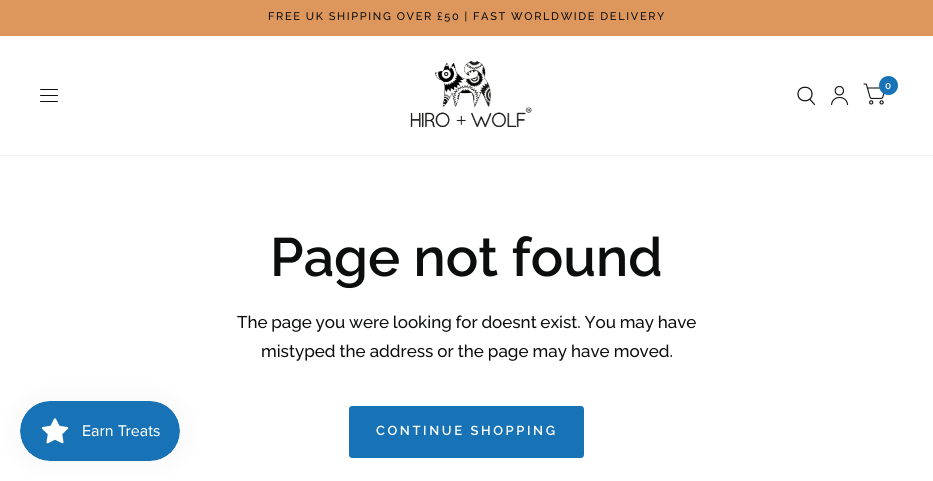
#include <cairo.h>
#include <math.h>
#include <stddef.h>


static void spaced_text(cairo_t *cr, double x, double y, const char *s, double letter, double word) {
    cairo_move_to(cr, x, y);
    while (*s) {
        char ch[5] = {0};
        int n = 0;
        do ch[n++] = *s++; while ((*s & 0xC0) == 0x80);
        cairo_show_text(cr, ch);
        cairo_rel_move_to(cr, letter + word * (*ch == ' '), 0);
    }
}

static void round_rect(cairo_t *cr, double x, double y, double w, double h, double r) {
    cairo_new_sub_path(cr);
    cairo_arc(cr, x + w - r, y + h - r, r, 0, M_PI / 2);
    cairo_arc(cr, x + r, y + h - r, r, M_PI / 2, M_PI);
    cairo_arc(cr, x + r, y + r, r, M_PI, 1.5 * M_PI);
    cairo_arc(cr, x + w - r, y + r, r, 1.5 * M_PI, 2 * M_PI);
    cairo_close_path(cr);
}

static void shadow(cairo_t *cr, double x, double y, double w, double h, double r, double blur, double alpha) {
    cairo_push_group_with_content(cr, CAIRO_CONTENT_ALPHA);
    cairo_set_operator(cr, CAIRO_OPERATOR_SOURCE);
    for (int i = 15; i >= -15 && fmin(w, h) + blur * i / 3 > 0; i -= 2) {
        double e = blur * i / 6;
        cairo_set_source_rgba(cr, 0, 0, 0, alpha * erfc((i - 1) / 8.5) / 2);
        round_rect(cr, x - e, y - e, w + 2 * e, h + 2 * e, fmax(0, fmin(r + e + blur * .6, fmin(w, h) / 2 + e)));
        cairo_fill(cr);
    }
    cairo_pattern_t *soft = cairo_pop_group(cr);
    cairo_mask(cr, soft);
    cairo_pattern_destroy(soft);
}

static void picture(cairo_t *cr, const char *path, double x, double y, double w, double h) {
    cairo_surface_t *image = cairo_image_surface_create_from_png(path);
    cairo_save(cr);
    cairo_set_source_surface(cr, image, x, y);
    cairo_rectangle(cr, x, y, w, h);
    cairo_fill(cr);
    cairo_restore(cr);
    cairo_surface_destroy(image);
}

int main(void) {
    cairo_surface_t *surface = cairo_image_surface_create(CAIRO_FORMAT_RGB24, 933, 481);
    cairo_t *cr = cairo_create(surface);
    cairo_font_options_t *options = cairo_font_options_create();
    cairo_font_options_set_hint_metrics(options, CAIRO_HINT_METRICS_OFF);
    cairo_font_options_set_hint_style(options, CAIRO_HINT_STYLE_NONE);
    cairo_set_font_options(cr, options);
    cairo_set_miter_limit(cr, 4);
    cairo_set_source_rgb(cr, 1, 1, 1);
    cairo_paint(cr);
    cairo_set_source_rgb(cr, 0, 0, 0);
    shadow(cr, 20, 401, 160, 60, 30, 12.5, 0.05);
    picture(cr, "img1.png", 20, 401, 160, 60);
    cairo_set_source_rgb(cr, 0.867, 0.592, 0.365);
    cairo_rectangle(cr, 0, 0, 933, 36);
    cairo_fill(cr);
    cairo_select_font_face(cr, "Raleway Medium", CAIRO_FONT_SLANT_NORMAL, CAIRO_FONT_WEIGHT_NORMAL);
    cairo_set_font_size(cr, 11);
    cairo_set_source_rgb(cr, 0.047, 0.051, 0.051);
    spaced_text(cr, 268, 20, "FREE UK SHIPPING OVER £50 | FAST WORLDWIDE DELIVERY", 1.65, -0.25);
    cairo_set_source_rgb(cr, 0.933, 0.933, 0.933);
    cairo_rectangle(cr, 0, 155, 933, 1);
    cairo_fill(cr);
    picture(cr, "img2.png", 410, 61, 122, 66);
    cairo_new_path(cr);
    cairo_move_to(cr, 810, 99.5);
    cairo_line_to(cr, 814.5, 104.5);
    cairo_move_to(cr, 812, 94);
    cairo_curve_to(cr, 812, 103, 798, 103, 798, 94);
    cairo_curve_to(cr, 798, 85, 812, 85, 812, 94);
    cairo_close_path(cr);
    cairo_set_source_rgb(cr, 0.047, 0.051, 0.051);
    cairo_set_line_width(cr, 1.2);
    cairo_set_line_cap(cr, CAIRO_LINE_CAP_ROUND);
    cairo_set_line_join(cr, CAIRO_LINE_JOIN_ROUND);
    cairo_stroke(cr);
    picture(cr, "img3.png", 831, 85, 18, 21);
    picture(cr, "img4.png", 863, 83, 22, 22);
    cairo_set_source_rgb(cr, 0.09, 0.451, 0.71);
    cairo_arc(cr, 888.5, 85.5, 9.5, 0, 2 * M_PI);
    cairo_fill(cr);
    cairo_select_font_face(cr, "Raleway SemiBold", CAIRO_FONT_SLANT_NORMAL, CAIRO_FONT_WEIGHT_NORMAL);
    cairo_set_font_size(cr, 10);
    cairo_set_source_rgb(cr, 1, 1, 1);
    cairo_move_to(cr, 885, 89);
    cairo_show_text(cr, "0");
    cairo_set_source_rgb(cr, 0.047, 0.051, 0.051);
    round_rect(cr, 40, 89, 18, 1, 0.5);
    cairo_fill(cr);
    round_rect(cr, 40, 95, 18, 1, 0.5);
    cairo_fill(cr);
    round_rect(cr, 40, 101, 18, 1, 0.5);
    cairo_fill(cr);
    cairo_set_font_size(cr, 54);
    cairo_move_to(cr, 270, 276);
    cairo_show_text(cr, "Page not found");
    cairo_select_font_face(cr, "Raleway Medium", CAIRO_FONT_SLANT_NORMAL, CAIRO_FONT_WEIGHT_NORMAL);
    cairo_set_font_size(cr, 17);
    spaced_text(cr, 237, 328, "The page you were looking for doesnt exist. You may have", 0, -0.6);
    spaced_text(cr, 261, 357, "mistyped the address or the page may have moved.", 0, -0.25);
    cairo_set_source_rgb(cr, 0.09, 0.451, 0.71);
    round_rect(cr, 349, 406, 235, 52, 3);
    cairo_fill(cr);
    cairo_select_font_face(cr, "Raleway SemiBold", CAIRO_FONT_SLANT_NORMAL, CAIRO_FONT_WEIGHT_NORMAL);
    cairo_set_font_size(cr, 13);
    cairo_set_source_rgb(cr, 1, 1, 1);
    spaced_text(cr, 376, 435, "CONTINUE SHOPPING", 2.6, 0);
    cairo_surface_write_to_png(surface, "page.png");
    cairo_font_options_destroy(options);
    cairo_destroy(cr);
    cairo_surface_destroy(surface);
    return 0;
}
